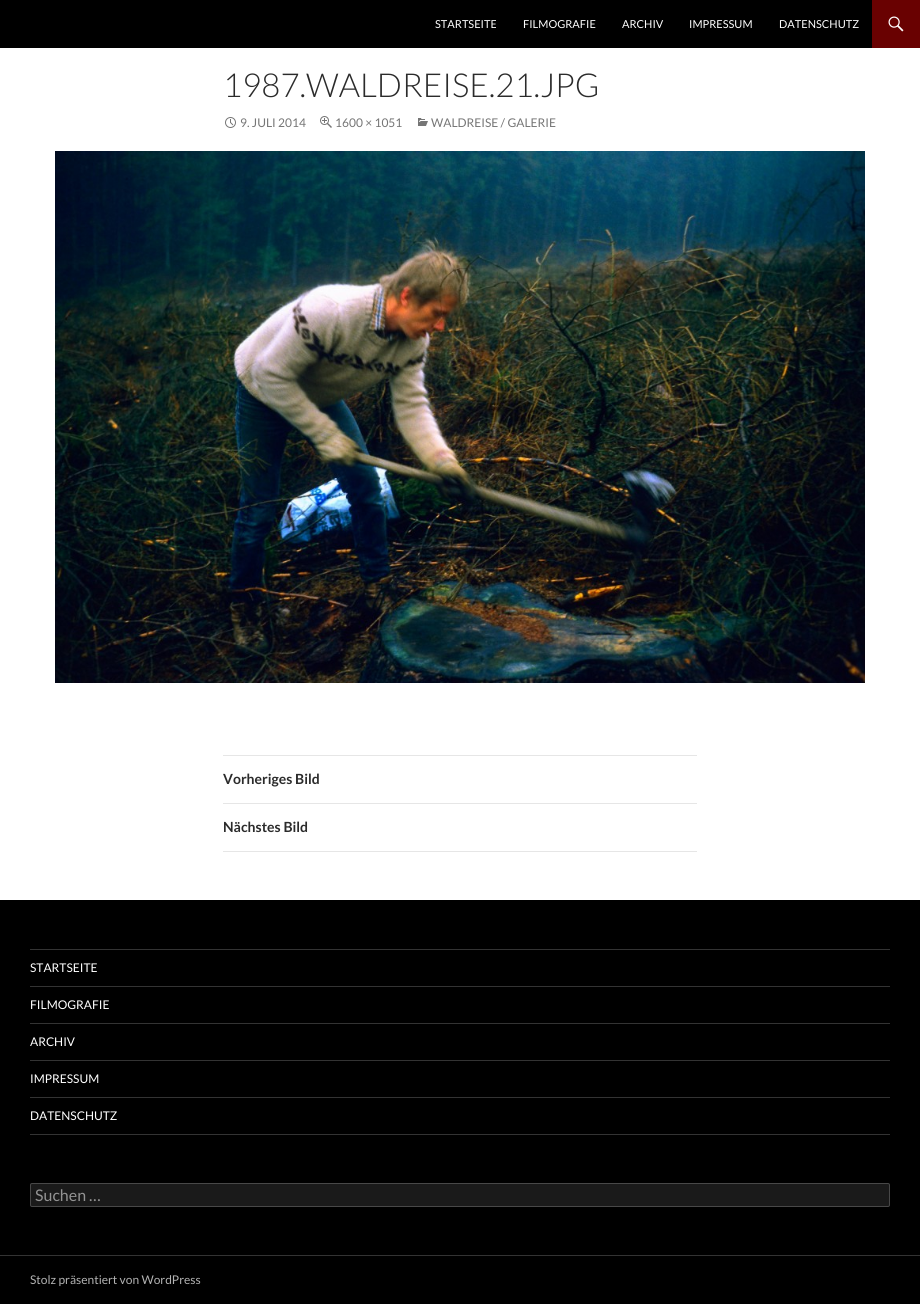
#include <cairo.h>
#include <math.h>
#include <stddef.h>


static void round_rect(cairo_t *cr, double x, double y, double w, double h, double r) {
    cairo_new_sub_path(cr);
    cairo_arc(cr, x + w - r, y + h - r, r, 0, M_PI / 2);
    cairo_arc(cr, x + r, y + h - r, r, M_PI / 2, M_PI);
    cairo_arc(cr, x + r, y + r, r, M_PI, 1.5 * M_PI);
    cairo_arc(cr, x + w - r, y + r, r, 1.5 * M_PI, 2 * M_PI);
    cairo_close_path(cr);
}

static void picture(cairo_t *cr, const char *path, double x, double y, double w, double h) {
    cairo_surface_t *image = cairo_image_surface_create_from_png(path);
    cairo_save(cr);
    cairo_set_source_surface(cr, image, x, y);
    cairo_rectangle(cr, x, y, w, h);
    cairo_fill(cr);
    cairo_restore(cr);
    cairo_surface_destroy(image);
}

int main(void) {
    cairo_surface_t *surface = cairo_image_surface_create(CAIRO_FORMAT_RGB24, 920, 1304);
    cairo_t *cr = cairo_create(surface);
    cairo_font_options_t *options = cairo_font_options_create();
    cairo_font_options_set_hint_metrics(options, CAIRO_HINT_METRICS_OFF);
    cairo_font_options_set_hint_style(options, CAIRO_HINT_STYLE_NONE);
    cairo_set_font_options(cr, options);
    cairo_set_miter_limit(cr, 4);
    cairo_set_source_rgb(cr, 1, 1, 1);
    cairo_paint(cr);
    cairo_set_source_rgb(cr, 0, 0, 0);
    cairo_rectangle(cr, 0, 0, 872, 48);
    cairo_fill(cr);
    cairo_select_font_face(cr, "Lato", CAIRO_FONT_SLANT_NORMAL, CAIRO_FONT_WEIGHT_NORMAL);
    cairo_set_font_size(cr, 11);
    cairo_set_source_rgb(cr, 1, 1, 1);
    cairo_move_to(cr, 435, 28);
    cairo_show_text(cr, "STARTSEITE");
    cairo_move_to(cr, 523, 28);
    cairo_show_text(cr, "FILMOGRAFIE");
    cairo_move_to(cr, 622, 28);
    cairo_show_text(cr, "ARCHIV");
    cairo_move_to(cr, 689, 28);
    cairo_show_text(cr, "IMPRESSUM");
    cairo_move_to(cr, 779, 28);
    cairo_show_text(cr, "DATENSCHUTZ");
    cairo_set_source_rgb(cr, 0.412, 0.004, 0.004);
    cairo_rectangle(cr, 872, 0, 48, 48);
    cairo_fill(cr);
    picture(cr, "img1.png", 888, 16, 16, 16);
    cairo_select_font_face(cr, "Lato Light", CAIRO_FONT_SLANT_NORMAL, CAIRO_FONT_WEIGHT_NORMAL);
    cairo_set_font_size(cr, 33);
    cairo_set_source_rgb(cr, 0.169, 0.169, 0.169);
    cairo_move_to(cr, 223, 97);
    cairo_show_text(cr, "1987.WALDREISE.21.JPG");
    picture(cr, "img2.png", 225, 117, 11, 11);
    cairo_select_font_face(cr, "Lato", CAIRO_FONT_SLANT_NORMAL, CAIRO_FONT_WEIGHT_NORMAL);
    cairo_set_font_size(cr, 12);
    cairo_set_source_rgb(cr, 0.463, 0.463, 0.463);
    cairo_move_to(cr, 240, 127);
    cairo_show_text(cr, "9. JULI 2014");
    picture(cr, "img3.png", 320, 116, 12, 12);
    cairo_move_to(cr, 335, 127);
    cairo_show_text(cr, "1600 × 1051");
    picture(cr, "img4.png", 418, 118, 10, 8);
    cairo_move_to(cr, 431, 127);
    cairo_show_text(cr, "WALDREISE / GALERIE");
    picture(cr, "img5.png", 55, 151, 810, 532);
    cairo_set_source_rgb(cr, 0.902, 0.902, 0.902);
    cairo_rectangle(cr, 223, 755, 474, 1);
    cairo_fill(cr);
    cairo_rectangle(cr, 223, 803, 474, 1);
    cairo_fill(cr);
    cairo_select_font_face(cr, "Lato", CAIRO_FONT_SLANT_NORMAL, CAIRO_FONT_WEIGHT_BOLD);
    cairo_set_font_size(cr, 14);
    cairo_set_source_rgb(cr, 0.169, 0.169, 0.169);
    cairo_move_to(cr, 223, 784);
    cairo_show_text(cr, "Vorheriges Bild");
    cairo_set_source_rgb(cr, 0.902, 0.902, 0.902);
    cairo_rectangle(cr, 223, 851, 474, 1);
    cairo_fill(cr);
    cairo_set_source_rgb(cr, 0.169, 0.169, 0.169);
    cairo_move_to(cr, 223, 832);
    cairo_show_text(cr, "Nächstes Bild");
    cairo_set_source_rgb(cr, 0, 0, 0);
    cairo_rectangle(cr, 0, 900, 920, 355);
    cairo_fill(cr);
    cairo_set_source_rgb(cr, 0.2, 0.2, 0.2);
    cairo_rectangle(cr, 0, 1255, 920, 1);
    cairo_fill(cr);
    cairo_rectangle(cr, 30, 1134, 860, 1);
    cairo_fill(cr);
    cairo_rectangle(cr, 30, 949, 860, 1);
    cairo_fill(cr);
    cairo_select_font_face(cr, "Lato", CAIRO_FONT_SLANT_NORMAL, CAIRO_FONT_WEIGHT_NORMAL);
    cairo_set_font_size(cr, 12);
    cairo_set_source_rgb(cr, 1, 1, 1);
    cairo_move_to(cr, 30, 972);
    cairo_show_text(cr, "STARTSEITE");
    cairo_set_source_rgb(cr, 0.2, 0.2, 0.2);
    cairo_rectangle(cr, 30, 986, 860, 1);
    cairo_fill(cr);
    cairo_set_source_rgb(cr, 1, 1, 1);
    cairo_move_to(cr, 30, 1009);
    cairo_show_text(cr, "FILMOGRAFIE");
    cairo_set_source_rgb(cr, 0.2, 0.2, 0.2);
    cairo_rectangle(cr, 30, 1023, 860, 1);
    cairo_fill(cr);
    cairo_set_source_rgb(cr, 1, 1, 1);
    cairo_move_to(cr, 30, 1046);
    cairo_show_text(cr, "ARCHIV");
    cairo_set_source_rgb(cr, 0.2, 0.2, 0.2);
    cairo_rectangle(cr, 30, 1060, 860, 1);
    cairo_fill(cr);
    cairo_set_source_rgb(cr, 1, 1, 1);
    cairo_move_to(cr, 30, 1083);
    cairo_show_text(cr, "IMPRESSUM");
    cairo_set_source_rgb(cr, 0.2, 0.2, 0.2);
    cairo_rectangle(cr, 30, 1097, 860, 1);
    cairo_fill(cr);
    cairo_set_source_rgb(cr, 1, 1, 1);
    cairo_move_to(cr, 30, 1120);
    cairo_show_text(cr, "DATENSCHUTZ");
    cairo_set_source_rgb(cr, 0.102, 0.102, 0.102);
    round_rect(cr, 30, 1183, 860, 24, 2);
    cairo_fill(cr);
    round_rect(cr, 30.5, 1183.5, 859, 23, 1.5);
    cairo_set_source_rgba(cr, 1, 1, 1, 0.2);
    cairo_set_line_width(cr, 1);
    cairo_stroke(cr);
    cairo_set_font_size(cr, 16);
    cairo_set_source_rgb(cr, 0.576, 0.576, 0.576);
    cairo_move_to(cr, 35, 1201);
    cairo_show_text(cr, "Suchen …");
    cairo_set_source_rgb(cr, 0, 0, 0);
    cairo_rectangle(cr, 0, 1256, 920, 48);
    cairo_fill(cr);
    cairo_set_font_size(cr, 12);
    cairo_set_source_rgb(cr, 0.702, 0.702, 0.702);
    cairo_move_to(cr, 30, 1284);
    cairo_show_text(cr, "Stolz präsentiert von WordPress");
    cairo_surface_write_to_png(surface, "page.png");
    cairo_font_options_destroy(options);
    cairo_destroy(cr);
    cairo_surface_destroy(surface);
    return 0;
}
